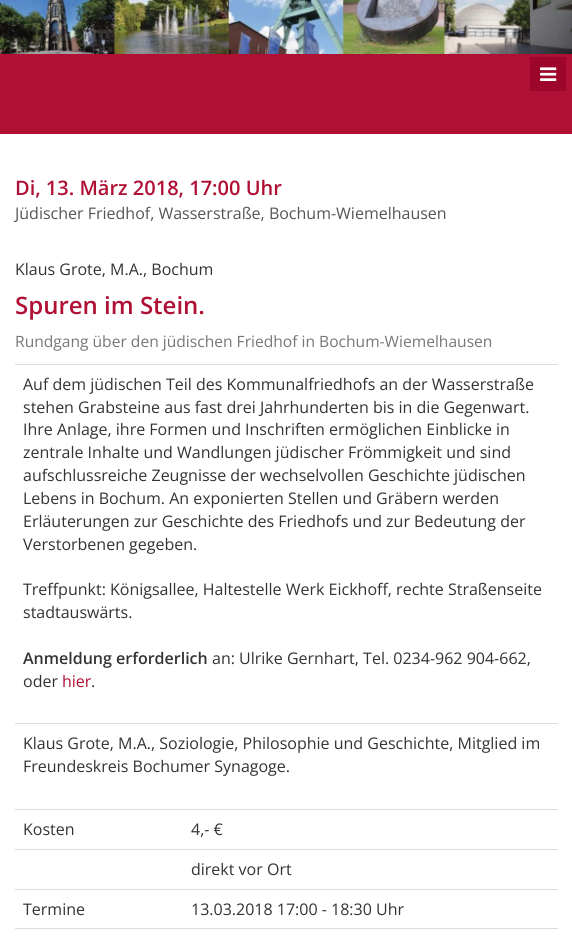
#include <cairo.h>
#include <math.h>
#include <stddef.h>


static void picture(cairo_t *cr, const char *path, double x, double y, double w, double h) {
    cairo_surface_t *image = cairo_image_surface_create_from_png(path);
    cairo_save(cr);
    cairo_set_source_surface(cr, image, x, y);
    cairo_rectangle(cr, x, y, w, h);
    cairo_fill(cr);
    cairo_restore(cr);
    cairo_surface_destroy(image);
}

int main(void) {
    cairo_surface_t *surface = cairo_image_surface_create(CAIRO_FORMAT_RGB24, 572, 948);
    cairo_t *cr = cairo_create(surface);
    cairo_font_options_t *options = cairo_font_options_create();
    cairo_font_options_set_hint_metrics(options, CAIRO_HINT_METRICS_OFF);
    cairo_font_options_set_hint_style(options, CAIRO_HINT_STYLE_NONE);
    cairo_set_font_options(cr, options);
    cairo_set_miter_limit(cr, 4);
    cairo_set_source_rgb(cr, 1, 1, 1);
    cairo_paint(cr);
    picture(cr, "img1.png", 0, 0, 572, 54);
    cairo_set_source_rgb(cr, 0.686, 0.063, 0.204);
    cairo_rectangle(cr, 0, 54, 572, 80);
    cairo_fill(cr);
    cairo_set_source_rgb(cr, 0.62, 0.02, 0.165);
    cairo_rectangle(cr, 530, 57, 36, 34);
    cairo_fill(cr);
    picture(cr, "img2.png", 540, 67, 17, 14);
    cairo_select_font_face(cr, "Open Sans SemiBold", CAIRO_FONT_SLANT_NORMAL, CAIRO_FONT_WEIGHT_NORMAL);
    cairo_set_font_size(cr, 20);
    cairo_set_source_rgb(cr, 0.686, 0.063, 0.204);
    cairo_move_to(cr, 15, 195);
    cairo_show_text(cr, "Di, 13. März 2018, 17:00 Uhr");
    cairo_select_font_face(cr, "Open Sans", CAIRO_FONT_SLANT_NORMAL, CAIRO_FONT_WEIGHT_NORMAL);
    cairo_set_font_size(cr, 16);
    cairo_set_source_rgb(cr, 0.333, 0.333, 0.333);
    cairo_move_to(cr, 15, 219);
    cairo_show_text(cr, "Jüdischer Friedhof, Wasserstraße, Bochum-Wiemelhausen");
    cairo_set_source_rgb(cr, 0.2, 0.2, 0.2);
    cairo_move_to(cr, 15, 275);
    cairo_show_text(cr, "Klaus Grote, M.A., Bochum");
    cairo_select_font_face(cr, "Open Sans SemiBold", CAIRO_FONT_SLANT_NORMAL, CAIRO_FONT_WEIGHT_NORMAL);
    cairo_set_font_size(cr, 24);
    cairo_set_source_rgb(cr, 0.686, 0.063, 0.204);
    cairo_move_to(cr, 15, 314);
    cairo_show_text(cr, "Spuren im Stein.");
    cairo_select_font_face(cr, "Open Sans", CAIRO_FONT_SLANT_NORMAL, CAIRO_FONT_WEIGHT_NORMAL);
    cairo_set_font_size(cr, 15.6);
    cairo_set_source_rgb(cr, 0.467, 0.467, 0.467);
    cairo_move_to(cr, 15, 347);
    cairo_show_text(cr, "Rundgang über den jüdischen Friedhof in Bochum-Wiemelhausen");
    cairo_set_source_rgb(cr, 0.867, 0.867, 0.867);
    cairo_rectangle(cr, 15, 364, 543, 1);
    cairo_fill(cr);
    cairo_set_font_size(cr, 16);
    cairo_set_source_rgb(cr, 0.2, 0.2, 0.2);
    cairo_move_to(cr, 23, 390);
    cairo_show_text(cr, "Auf dem jüdischen Teil des Kommunalfriedhofs an der Wasserstraße");
    cairo_move_to(cr, 23, 413);
    cairo_show_text(cr, "stehen Grabsteine aus fast drei Jahrhunderten bis in die Gegenwart.");
    cairo_move_to(cr, 23, 435);
    cairo_show_text(cr, "Ihre Anlage, ihre Formen und Inschriften ermöglichen Einblicke in");
    cairo_move_to(cr, 23, 458);
    cairo_show_text(cr, "zentrale Inhalte und Wandlungen jüdischer Frömmigkeit und sind");
    cairo_move_to(cr, 23, 481);
    cairo_show_text(cr, "aufschlussreiche Zeugnisse der wechselvollen Geschichte jüdischen");
    cairo_move_to(cr, 23, 504);
    cairo_show_text(cr, "Lebens in Bochum. An exponierten Stellen und Gräbern werden");
    cairo_move_to(cr, 23, 527);
    cairo_show_text(cr, "Erläuterungen zur Geschichte des Friedhofs und zur Bedeutung der");
    cairo_move_to(cr, 23, 550);
    cairo_show_text(cr, "Verstorbenen gegeben.");
    cairo_move_to(cr, 23, 595);
    cairo_show_text(cr, "Treffpunkt: Königsallee, Haltestelle Werk Eickhoff, rechte Straßenseite");
    cairo_move_to(cr, 23, 618);
    cairo_show_text(cr, "stadtauswärts.");
    cairo_select_font_face(cr, "Open Sans SemiBold", CAIRO_FONT_SLANT_NORMAL, CAIRO_FONT_WEIGHT_NORMAL);
    cairo_move_to(cr, 23, 664);
    cairo_show_text(cr, "Anmeldung erforderlich");
    cairo_select_font_face(cr, "Open Sans", CAIRO_FONT_SLANT_NORMAL, CAIRO_FONT_WEIGHT_NORMAL);
    cairo_move_to(cr, 212, 664);
    cairo_show_text(cr, "an: Ulrike Gernhart, Tel. 0234-962 904-662,");
    cairo_move_to(cr, 23, 687);
    cairo_show_text(cr, "oder");
    cairo_set_source_rgb(cr, 0.686, 0.063, 0.204);
    cairo_move_to(cr, 62, 687);
    cairo_show_text(cr, "hier");
    cairo_set_source_rgb(cr, 0.2, 0.2, 0.2);
    cairo_move_to(cr, 91, 687);
    cairo_show_text(cr, ".");
    cairo_set_source_rgb(cr, 0.867, 0.867, 0.867);
    cairo_rectangle(cr, 15, 723, 543, 1);
    cairo_fill(cr);
    cairo_set_source_rgb(cr, 0.2, 0.2, 0.2);
    cairo_move_to(cr, 23, 749);
    cairo_show_text(cr, "Klaus Grote, M.A., Soziologie, Philosophie und Geschichte, Mitglied im");
    cairo_move_to(cr, 23, 772);
    cairo_show_text(cr, "Freundeskreis Bochumer Synagoge.");
    cairo_move_to(cr, 23, 835);
    cairo_show_text(cr, "Kosten");
    cairo_set_source_rgb(cr, 0.867, 0.867, 0.867);
    cairo_rectangle(cr, 15, 809, 543, 1);
    cairo_fill(cr);
    cairo_set_source_rgb(cr, 0.2, 0.2, 0.2);
    cairo_move_to(cr, 191, 835);
    cairo_show_text(cr, "4,- €");
    cairo_set_source_rgb(cr, 0.867, 0.867, 0.867);
    cairo_rectangle(cr, 15, 849, 543, 1);
    cairo_fill(cr);
    cairo_set_source_rgb(cr, 0.2, 0.2, 0.2);
    cairo_move_to(cr, 191, 875);
    cairo_show_text(cr, "direkt vor Ort");
    cairo_move_to(cr, 23, 915);
    cairo_show_text(cr, "Termine");
    cairo_set_source_rgb(cr, 0.867, 0.867, 0.867);
    cairo_rectangle(cr, 15, 889, 543, 1);
    cairo_fill(cr);
    cairo_set_source_rgb(cr, 0.2, 0.2, 0.2);
    cairo_move_to(cr, 191, 915);
    cairo_show_text(cr, "13.03.2018 17:00 - 18:30 Uhr");
    cairo_set_source_rgb(cr, 0.867, 0.867, 0.867);
    cairo_rectangle(cr, 15, 928, 543, 1);
    cairo_fill(cr);
    cairo_surface_write_to_png(surface, "page.png");
    cairo_font_options_destroy(options);
    cairo_destroy(cr);
    cairo_surface_destroy(surface);
    return 0;
}
